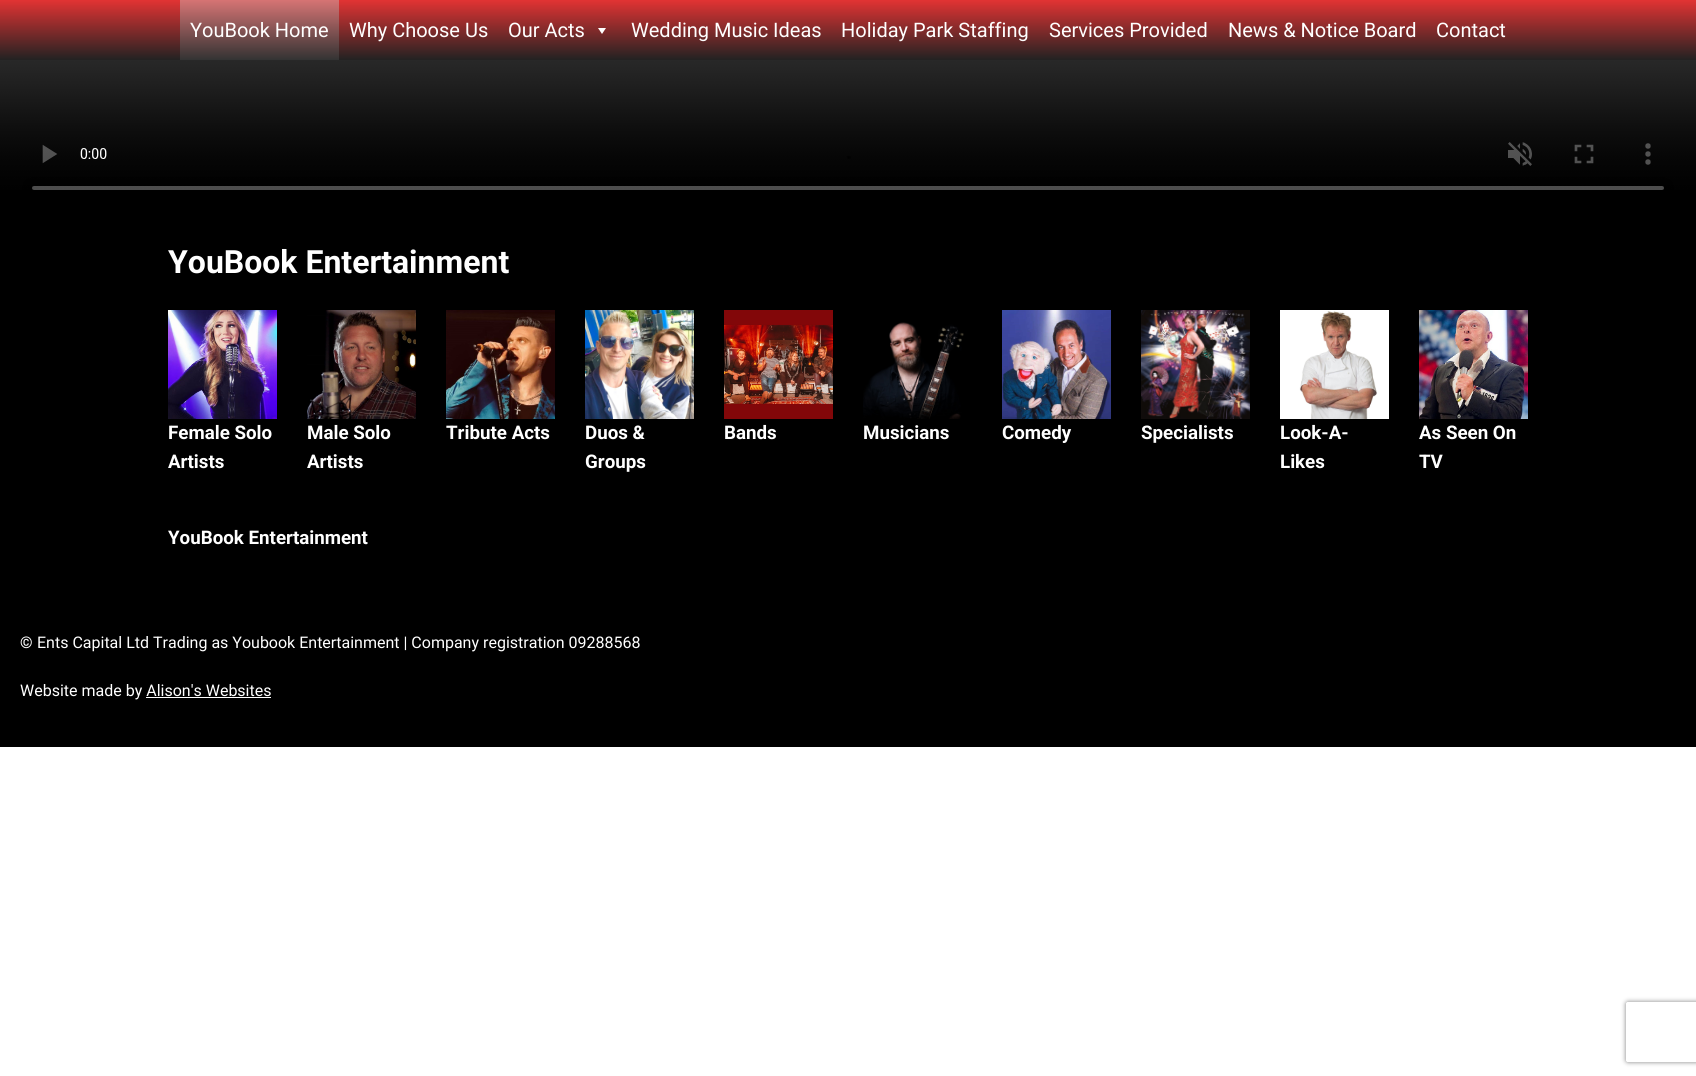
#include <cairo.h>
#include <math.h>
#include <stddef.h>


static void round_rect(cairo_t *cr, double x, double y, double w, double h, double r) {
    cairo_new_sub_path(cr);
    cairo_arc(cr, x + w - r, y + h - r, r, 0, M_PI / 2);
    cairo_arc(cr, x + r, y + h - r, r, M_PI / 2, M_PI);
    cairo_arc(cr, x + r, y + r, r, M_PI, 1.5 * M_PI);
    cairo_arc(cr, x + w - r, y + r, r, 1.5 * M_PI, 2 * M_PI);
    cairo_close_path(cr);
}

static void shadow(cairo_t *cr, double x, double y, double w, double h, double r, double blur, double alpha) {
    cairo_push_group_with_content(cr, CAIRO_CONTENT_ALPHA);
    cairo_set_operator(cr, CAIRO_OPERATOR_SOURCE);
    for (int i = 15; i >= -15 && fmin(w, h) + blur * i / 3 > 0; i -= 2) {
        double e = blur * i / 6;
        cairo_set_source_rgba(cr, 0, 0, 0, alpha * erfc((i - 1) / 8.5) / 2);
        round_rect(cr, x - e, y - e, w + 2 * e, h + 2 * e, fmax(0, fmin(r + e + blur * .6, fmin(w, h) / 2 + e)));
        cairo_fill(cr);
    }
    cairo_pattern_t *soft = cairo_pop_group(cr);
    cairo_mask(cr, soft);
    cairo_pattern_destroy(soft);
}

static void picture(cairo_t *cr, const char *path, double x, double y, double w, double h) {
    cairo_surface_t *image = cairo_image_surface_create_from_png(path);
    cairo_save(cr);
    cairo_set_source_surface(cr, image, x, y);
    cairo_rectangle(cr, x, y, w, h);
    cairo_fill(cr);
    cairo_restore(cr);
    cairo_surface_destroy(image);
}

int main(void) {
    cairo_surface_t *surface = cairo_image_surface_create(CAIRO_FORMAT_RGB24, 1696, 1076);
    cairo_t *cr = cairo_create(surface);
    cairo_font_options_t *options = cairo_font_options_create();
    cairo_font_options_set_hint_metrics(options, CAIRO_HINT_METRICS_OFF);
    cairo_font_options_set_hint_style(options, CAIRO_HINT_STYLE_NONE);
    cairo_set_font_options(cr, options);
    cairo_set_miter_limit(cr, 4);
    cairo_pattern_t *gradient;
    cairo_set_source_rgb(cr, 1, 1, 1);
    cairo_paint(cr);
    cairo_set_source_rgb(cr, 0, 0, 0);
    cairo_rectangle(cr, 0, 190, 1696, 557);
    cairo_fill(cr);
    gradient = cairo_pattern_create_linear(848, 0, 848, 60);
    cairo_pattern_add_color_stop_rgba(gradient, 0, 0.886, 0.2, 0.2, 1);
    cairo_pattern_add_color_stop_rgba(gradient, 1, 0.133, 0.133, 0.133, 1);
    cairo_set_source(cr, gradient);
    cairo_pattern_destroy(gradient);
    cairo_rectangle(cr, 0, 0, 1696, 60);
    cairo_fill(cr);
    gradient = cairo_pattern_create_linear(260, 0, 260, 60);
    cairo_pattern_add_color_stop_rgba(gradient, 0, 0.839, 0.455, 0.455, 1);
    cairo_pattern_add_color_stop_rgba(gradient, 1, 0.2, 0.2, 0.2, 1);
    cairo_set_source(cr, gradient);
    cairo_pattern_destroy(gradient);
    cairo_rectangle(cr, 180, 0, 159, 60);
    cairo_fill(cr);
    cairo_select_font_face(cr, "Roboto", CAIRO_FONT_SLANT_NORMAL, CAIRO_FONT_WEIGHT_NORMAL);
    cairo_set_font_size(cr, 20);
    cairo_set_source_rgb(cr, 1, 1, 1);
    cairo_move_to(cr, 190, 37);
    cairo_show_text(cr, "YouBook Home");
    cairo_move_to(cr, 349, 37);
    cairo_show_text(cr, "Why Choose Us");
    cairo_move_to(cr, 508, 37);
    cairo_show_text(cr, "Our Acts");
    cairo_new_path(cr);
    cairo_move_to(cr, 606, 28);
    cairo_line_to(cr, 602, 34);
    cairo_line_to(cr, 598, 28);
    cairo_close_path(cr);
    cairo_fill(cr);
    cairo_move_to(cr, 631, 37);
    cairo_show_text(cr, "Wedding Music Ideas");
    cairo_move_to(cr, 841, 37);
    cairo_show_text(cr, "Holiday Park Staffing");
    cairo_move_to(cr, 1049, 37);
    cairo_show_text(cr, "Services Provided");
    cairo_move_to(cr, 1228, 37);
    cairo_show_text(cr, "News & Notice Board");
    cairo_move_to(cr, 1436, 37);
    cairo_show_text(cr, "Contact");
    picture(cr, "img1.png", 0, 60, 1696, 130);
    cairo_select_font_face(cr, "Roboto", CAIRO_FONT_SLANT_NORMAL, CAIRO_FONT_WEIGHT_BOLD);
    cairo_set_font_size(cr, 32);
    cairo_move_to(cr, 168, 273);
    cairo_show_text(cr, "YouBook Entertainment");
    picture(cr, "img2.png", 168, 310, 109, 109);
    cairo_set_font_size(cr, 18.75);
    cairo_move_to(cr, 168, 439);
    cairo_show_text(cr, "Female Solo");
    cairo_move_to(cr, 168, 468);
    cairo_show_text(cr, "Artists");
    picture(cr, "img3.png", 307, 310, 109, 109);
    cairo_move_to(cr, 307, 439);
    cairo_show_text(cr, "Male Solo");
    cairo_move_to(cr, 307, 468);
    cairo_show_text(cr, "Artists");
    picture(cr, "img4.png", 446, 310, 109, 109);
    cairo_move_to(cr, 446, 439);
    cairo_show_text(cr, "Tribute Acts");
    picture(cr, "img5.png", 585, 310, 109, 109);
    cairo_move_to(cr, 585, 439);
    cairo_show_text(cr, "Duos &");
    cairo_move_to(cr, 585, 468);
    cairo_show_text(cr, "Groups");
    picture(cr, "img6.png", 724, 310, 109, 109);
    cairo_move_to(cr, 724, 439);
    cairo_show_text(cr, "Bands");
    picture(cr, "img7.png", 863, 322, 101, 97);
    cairo_move_to(cr, 863, 439);
    cairo_show_text(cr, "Musicians");
    picture(cr, "img8.png", 1002, 310, 109, 109);
    cairo_move_to(cr, 1002, 439);
    cairo_show_text(cr, "Comedy");
    picture(cr, "img9.png", 1141, 310, 109, 109);
    cairo_move_to(cr, 1141, 439);
    cairo_show_text(cr, "Specialists");
    picture(cr, "img10.png", 1280, 310, 109, 109);
    cairo_move_to(cr, 1280, 439);
    cairo_show_text(cr, "Look-A-");
    cairo_move_to(cr, 1280, 468);
    cairo_show_text(cr, "Likes");
    picture(cr, "img11.png", 1419, 310, 109, 109);
    cairo_move_to(cr, 1419, 439);
    cairo_show_text(cr, "As Seen On");
    cairo_move_to(cr, 1419, 468);
    cairo_show_text(cr, "TV");
    cairo_move_to(cr, 168, 544);
    cairo_show_text(cr, "YouBook Entertainment");
    cairo_set_font_size(cr, 16);
    cairo_move_to(cr, 20, 648);
    cairo_show_text(cr, "©");
    cairo_select_font_face(cr, "Roboto", CAIRO_FONT_SLANT_NORMAL, CAIRO_FONT_WEIGHT_NORMAL);
    cairo_move_to(cr, 37, 648);
    cairo_show_text(cr, "Ents Capital Ltd Trading as Youbook Entertainment | Company registration 09288568");
    cairo_move_to(cr, 20, 696);
    cairo_show_text(cr, "Website made by Alison's Websites");
    cairo_rectangle(cr, 146, 697, 125, 1);
    cairo_fill(cr);
    cairo_save(cr);
    cairo_set_fill_rule(cr, CAIRO_FILL_RULE_EVEN_ODD);
    cairo_new_path(cr);
    cairo_move_to(cr, 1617, 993);
    cairo_line_to(cr, 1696, 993);
    cairo_line_to(cr, 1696, 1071);
    cairo_line_to(cr, 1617, 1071);
    cairo_close_path(cr);
    cairo_move_to(cr, 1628, 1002);
    cairo_line_to(cr, 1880, 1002);
    cairo_curve_to(cr, 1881, 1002, 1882, 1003, 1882, 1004);
    cairo_line_to(cr, 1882, 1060);
    cairo_curve_to(cr, 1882, 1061, 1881, 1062, 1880, 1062);
    cairo_line_to(cr, 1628, 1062);
    cairo_curve_to(cr, 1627, 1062, 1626, 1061, 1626, 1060);
    cairo_line_to(cr, 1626, 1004);
    cairo_curve_to(cr, 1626, 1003, 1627, 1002, 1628, 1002);
    cairo_close_path(cr);
    cairo_clip(cr);
    cairo_set_source_rgb(cr, 0.502, 0.502, 0.502);
    shadow(cr, 1626, 1002, 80, 60, 2, 2.5, 1);
    cairo_restore(cr);
    cairo_surface_write_to_png(surface, "page.png");
    cairo_font_options_destroy(options);
    cairo_destroy(cr);
    cairo_surface_destroy(surface);
    return 0;
}
